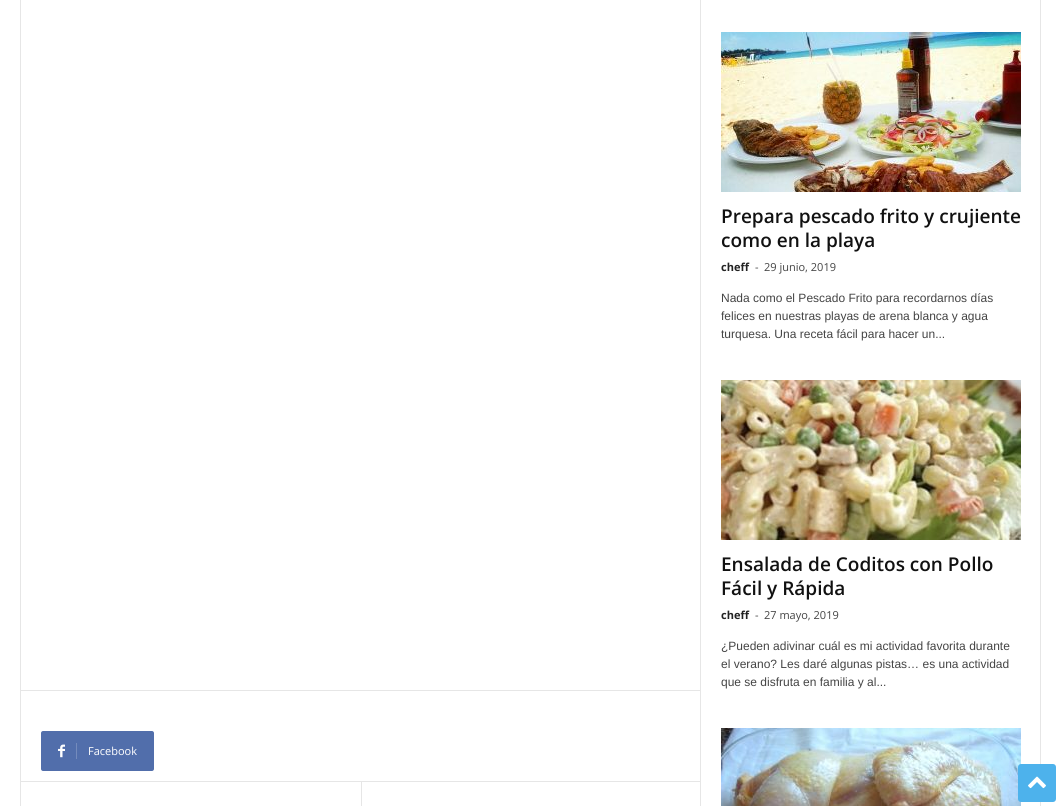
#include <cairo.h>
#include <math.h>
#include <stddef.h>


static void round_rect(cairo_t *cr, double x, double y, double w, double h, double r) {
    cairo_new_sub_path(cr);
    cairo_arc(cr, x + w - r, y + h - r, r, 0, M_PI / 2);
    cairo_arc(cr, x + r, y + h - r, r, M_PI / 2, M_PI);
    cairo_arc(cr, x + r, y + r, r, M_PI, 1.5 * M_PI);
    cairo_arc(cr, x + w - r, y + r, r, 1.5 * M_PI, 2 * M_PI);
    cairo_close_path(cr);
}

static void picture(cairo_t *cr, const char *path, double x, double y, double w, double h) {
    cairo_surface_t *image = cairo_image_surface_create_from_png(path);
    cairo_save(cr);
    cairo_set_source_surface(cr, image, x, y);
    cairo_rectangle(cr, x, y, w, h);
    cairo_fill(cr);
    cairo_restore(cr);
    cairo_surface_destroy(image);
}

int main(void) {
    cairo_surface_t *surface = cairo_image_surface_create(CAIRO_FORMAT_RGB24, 1061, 806);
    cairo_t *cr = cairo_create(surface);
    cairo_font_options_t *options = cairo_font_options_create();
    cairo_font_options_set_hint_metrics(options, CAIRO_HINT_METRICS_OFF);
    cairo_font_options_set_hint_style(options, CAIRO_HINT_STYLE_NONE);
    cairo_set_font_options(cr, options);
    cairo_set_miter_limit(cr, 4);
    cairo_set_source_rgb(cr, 1, 1, 1);
    cairo_paint(cr);
    cairo_set_source_rgb(cr, 0.902, 0.902, 0.902);
    cairo_rectangle(cr, 20, 0, 1, 806);
    cairo_fill(cr);
    picture(cr, "img1.png", 721, 32, 300, 160);
    cairo_select_font_face(cr, "Open Sans SemiBold", CAIRO_FONT_SLANT_NORMAL, CAIRO_FONT_WEIGHT_NORMAL);
    cairo_set_font_size(cr, 19);
    cairo_set_source_rgb(cr, 0.067, 0.067, 0.067);
    cairo_move_to(cr, 721, 223);
    cairo_show_text(cr, "Prepara pescado frito y crujiente");
    cairo_move_to(cr, 721, 247);
    cairo_show_text(cr, "como en la playa");
    cairo_select_font_face(cr, "Open Sans", CAIRO_FONT_SLANT_NORMAL, CAIRO_FONT_WEIGHT_BOLD);
    cairo_set_font_size(cr, 11);
    cairo_set_source_rgb(cr, 0.133, 0.133, 0.133);
    cairo_move_to(cr, 721, 271);
    cairo_show_text(cr, "cheff");
    cairo_select_font_face(cr, "Open Sans", CAIRO_FONT_SLANT_NORMAL, CAIRO_FONT_WEIGHT_NORMAL);
    cairo_set_source_rgb(cr, 0.267, 0.267, 0.267);
    cairo_move_to(cr, 755, 271);
    cairo_show_text(cr, "-");
    cairo_move_to(cr, 764, 271);
    cairo_show_text(cr, "29 junio, 2019");
    cairo_select_font_face(cr, "Liberation Sans", CAIRO_FONT_SLANT_NORMAL, CAIRO_FONT_WEIGHT_NORMAL);
    cairo_set_font_size(cr, 12);
    cairo_move_to(cr, 721, 302);
    cairo_show_text(cr, "Nada como el Pescado Frito para recordarnos días");
    cairo_move_to(cr, 721, 320);
    cairo_show_text(cr, "felices en nuestras playas de arena blanca y agua");
    cairo_move_to(cr, 721, 338);
    cairo_show_text(cr, "turquesa. Una receta fácil para hacer un...");
    picture(cr, "img2.png", 721, 380, 300, 160);
    cairo_select_font_face(cr, "Open Sans SemiBold", CAIRO_FONT_SLANT_NORMAL, CAIRO_FONT_WEIGHT_NORMAL);
    cairo_set_font_size(cr, 19);
    cairo_set_source_rgb(cr, 0.067, 0.067, 0.067);
    cairo_move_to(cr, 721, 571);
    cairo_show_text(cr, "Ensalada de Coditos con Pollo");
    cairo_move_to(cr, 721, 595);
    cairo_show_text(cr, "Fácil y Rápida");
    cairo_select_font_face(cr, "Open Sans", CAIRO_FONT_SLANT_NORMAL, CAIRO_FONT_WEIGHT_BOLD);
    cairo_set_font_size(cr, 11);
    cairo_set_source_rgb(cr, 0.133, 0.133, 0.133);
    cairo_move_to(cr, 721, 619);
    cairo_show_text(cr, "cheff");
    cairo_select_font_face(cr, "Open Sans", CAIRO_FONT_SLANT_NORMAL, CAIRO_FONT_WEIGHT_NORMAL);
    cairo_set_source_rgb(cr, 0.267, 0.267, 0.267);
    cairo_move_to(cr, 755, 619);
    cairo_show_text(cr, "-");
    cairo_move_to(cr, 764, 619);
    cairo_show_text(cr, "27 mayo, 2019");
    cairo_select_font_face(cr, "Liberation Sans", CAIRO_FONT_SLANT_NORMAL, CAIRO_FONT_WEIGHT_NORMAL);
    cairo_set_font_size(cr, 12);
    cairo_move_to(cr, 721, 650);
    cairo_show_text(cr, "¿Pueden adivinar cuál es mi actividad favorita durante");
    cairo_move_to(cr, 721, 668);
    cairo_show_text(cr, "el verano? Les daré algunas pistas… es una actividad");
    cairo_move_to(cr, 721, 686);
    cairo_show_text(cr, "que se disfruta en familia y al...");
    picture(cr, "img3.png", 721, 728, 300, 78);
    cairo_set_source_rgb(cr, 0.902, 0.902, 0.902);
    cairo_rectangle(cr, 21, 690, 679, 1);
    cairo_fill(cr);
    cairo_set_source_rgb(cr, 0.318, 0.431, 0.671);
    cairo_new_path(cr);
    cairo_move_to(cr, 76, 731);
    cairo_line_to(cr, 152, 731);
    cairo_curve_to(cr, 153, 731, 154, 732, 154, 733);
    cairo_line_to(cr, 154, 769);
    cairo_curve_to(cr, 154, 770, 153, 771, 152, 771);
    cairo_line_to(cr, 76, 771);
    cairo_close_path(cr);
    cairo_fill(cr);
    cairo_new_path(cr);
    cairo_move_to(cr, 43, 731);
    cairo_line_to(cr, 82, 731);
    cairo_line_to(cr, 82, 771);
    cairo_line_to(cr, 43, 771);
    cairo_curve_to(cr, 42, 771, 41, 770, 41, 769);
    cairo_line_to(cr, 41, 733);
    cairo_curve_to(cr, 41, 732, 42, 731, 43, 731);
    cairo_close_path(cr);
    cairo_fill(cr);
    picture(cr, "img4.png", 58, 744, 7, 14);
    cairo_set_source_rgb(cr, 0.455, 0.545, 0.737);
    cairo_rectangle(cr, 76, 743, 1, 16);
    cairo_fill(cr);
    cairo_select_font_face(cr, "Open Sans", CAIRO_FONT_SLANT_NORMAL, CAIRO_FONT_WEIGHT_NORMAL);
    cairo_set_font_size(cr, 11);
    cairo_set_source_rgb(cr, 1, 1, 1);
    cairo_move_to(cr, 88, 755);
    cairo_show_text(cr, "Facebook");
    cairo_set_source_rgb(cr, 0.902, 0.902, 0.902);
    cairo_rectangle(cr, 21, 781, 679, 1);
    cairo_fill(cr);
    cairo_rectangle(cr, 361, 782, 1, 24);
    cairo_fill(cr);
    cairo_rectangle(cr, 700, 0, 1, 806);
    cairo_fill(cr);
    cairo_rectangle(cr, 1040, 0, 1, 806);
    cairo_fill(cr);
    cairo_set_source_rgb(cr, 0.302, 0.698, 0.925);
    round_rect(cr, 1018, 764, 38, 38, 3);
    cairo_fill(cr);
    picture(cr, "img5.png", 1028, 776, 18, 13);
    cairo_surface_write_to_png(surface, "page.png");
    cairo_font_options_destroy(options);
    cairo_destroy(cr);
    cairo_surface_destroy(surface);
    return 0;
}
